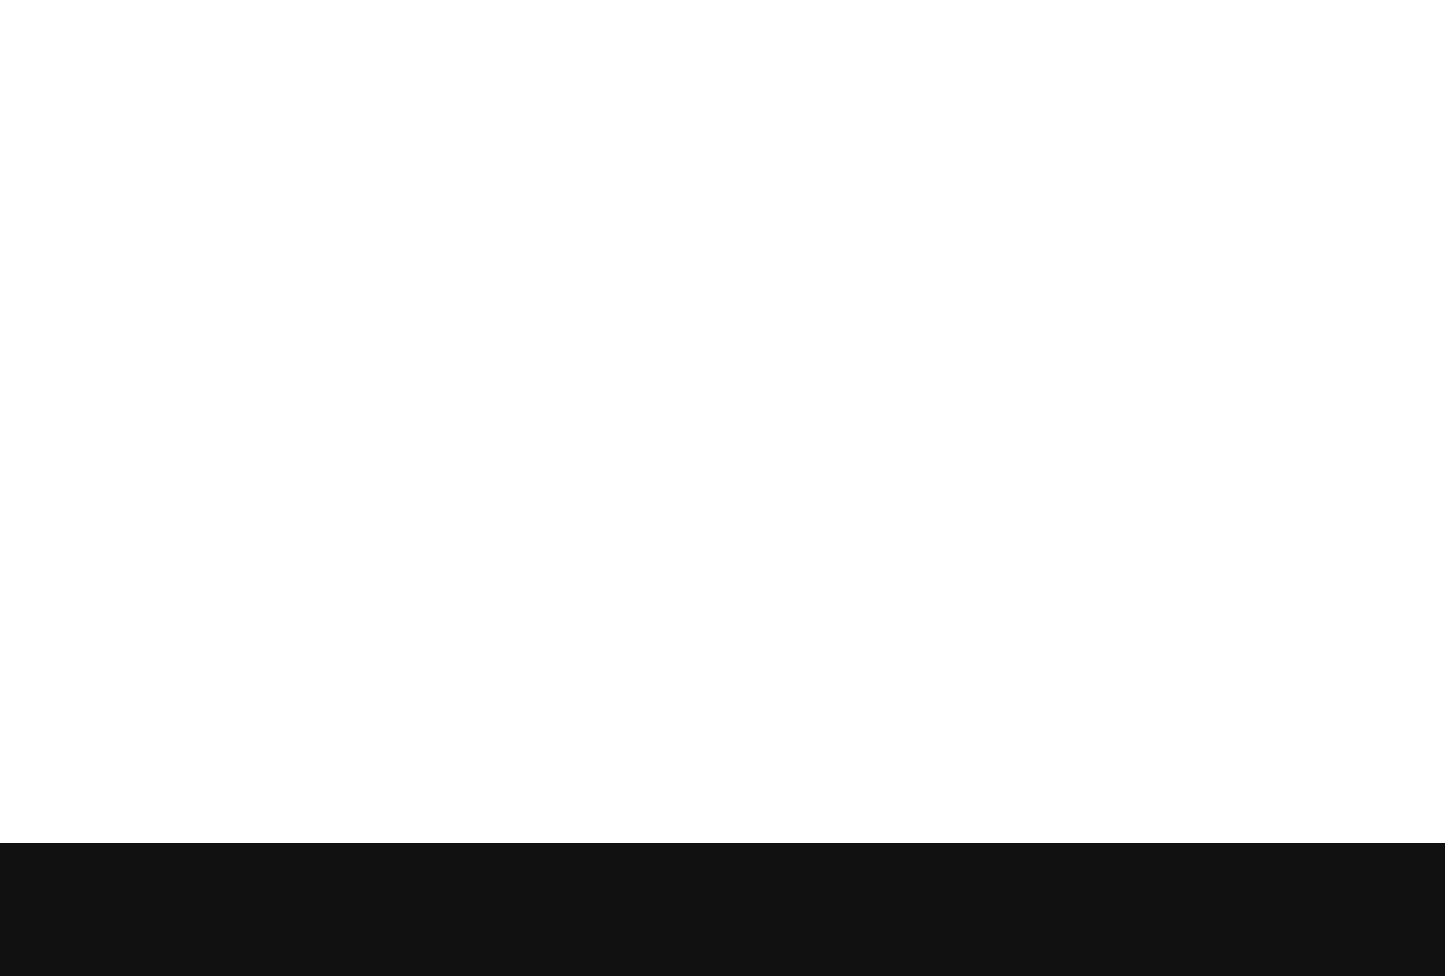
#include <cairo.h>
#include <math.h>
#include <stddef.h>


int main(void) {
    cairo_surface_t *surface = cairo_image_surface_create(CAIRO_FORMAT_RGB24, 1445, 976);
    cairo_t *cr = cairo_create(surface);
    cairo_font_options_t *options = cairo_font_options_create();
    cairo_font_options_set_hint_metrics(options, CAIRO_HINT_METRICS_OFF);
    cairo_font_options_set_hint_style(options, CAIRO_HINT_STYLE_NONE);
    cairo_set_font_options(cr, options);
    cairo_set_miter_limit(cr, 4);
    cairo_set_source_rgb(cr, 1, 1, 1);
    cairo_paint(cr);
    cairo_set_source_rgb(cr, 0.067, 0.067, 0.067);
    cairo_rectangle(cr, 0, 843, 1445, 133);
    cairo_fill(cr);
    cairo_surface_write_to_png(surface, "page.png");
    cairo_font_options_destroy(options);
    cairo_destroy(cr);
    cairo_surface_destroy(surface);
    return 0;
}
